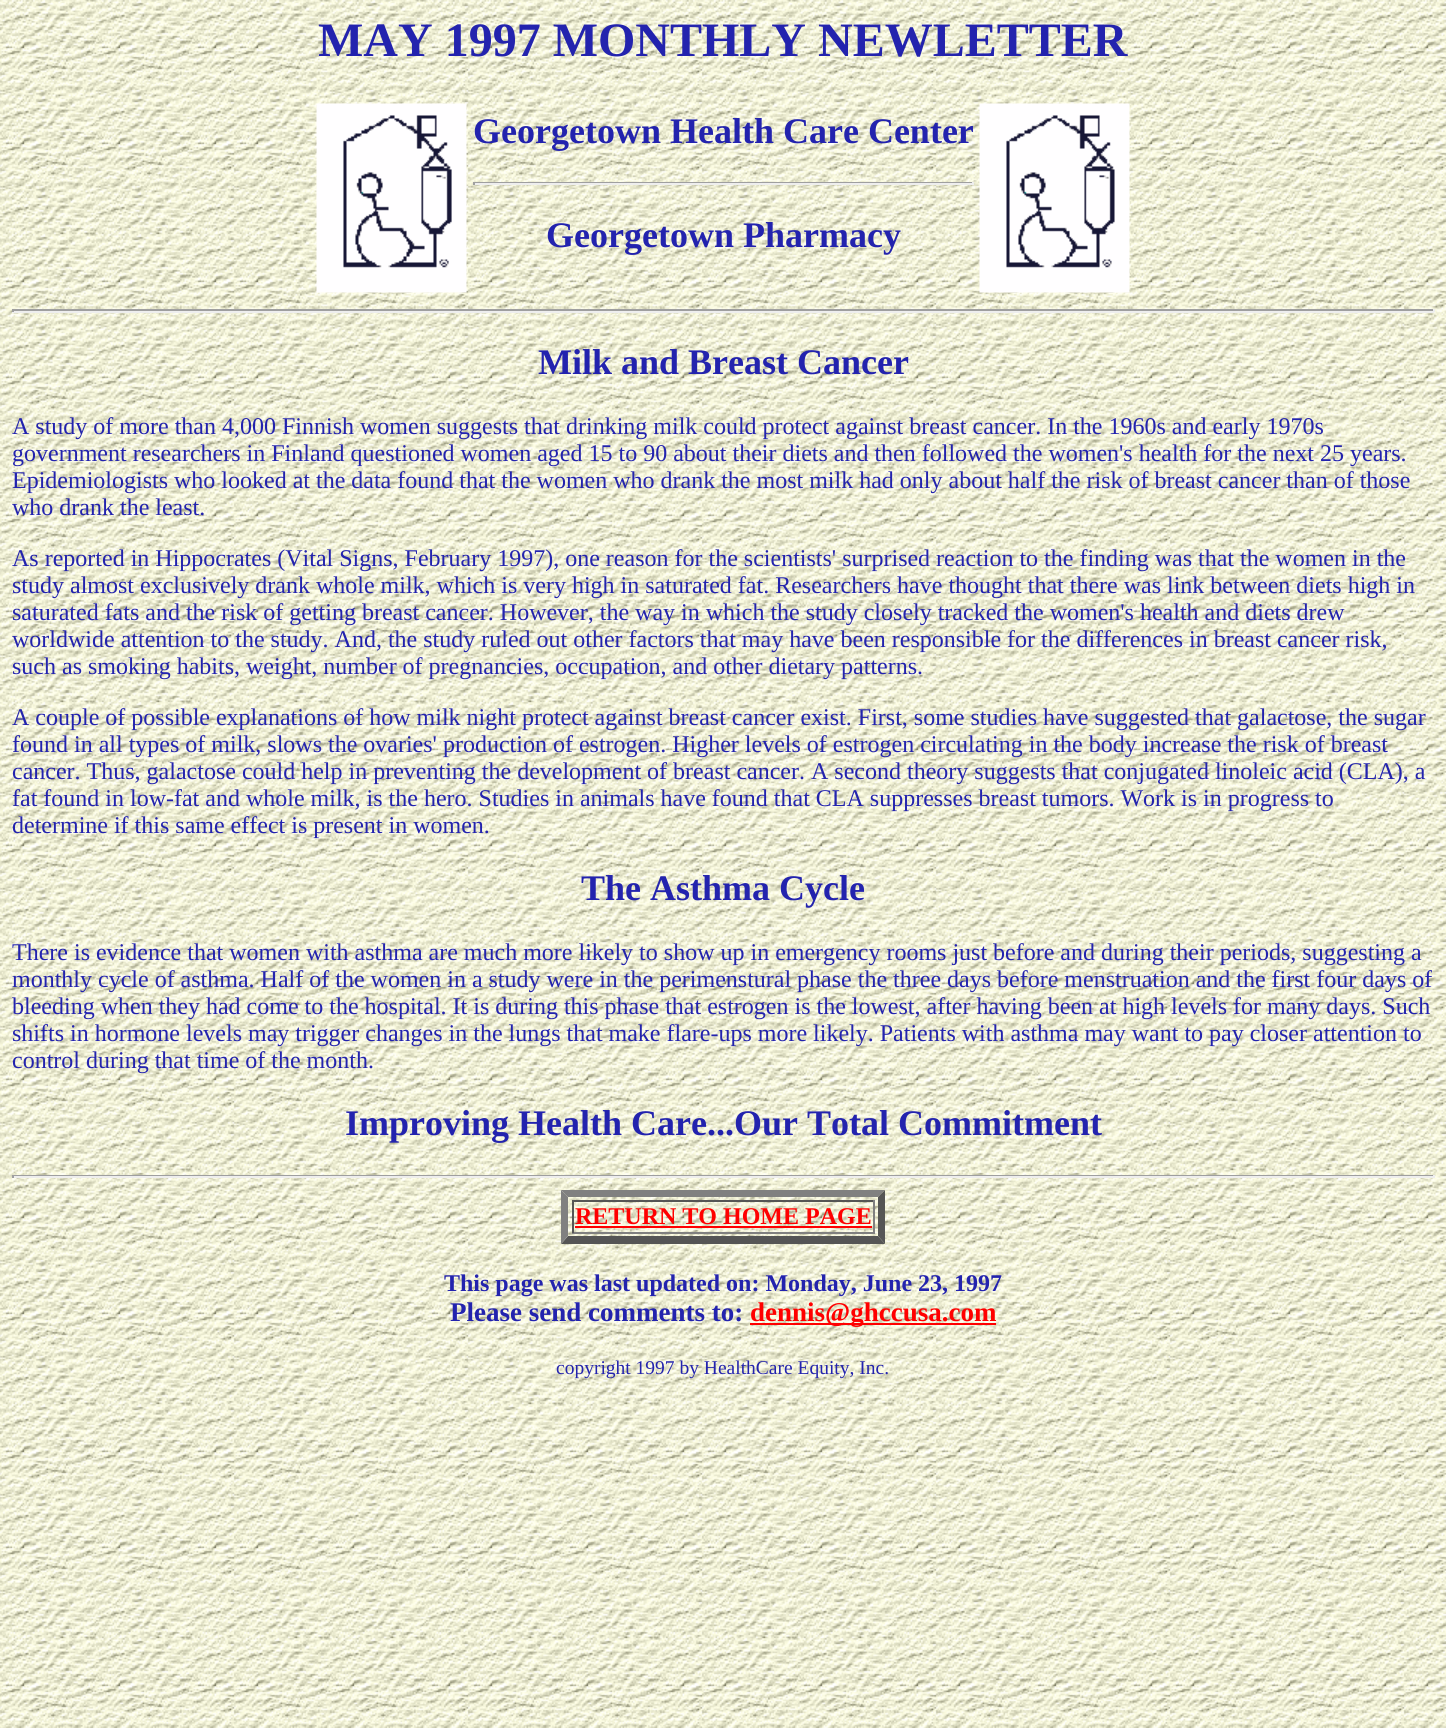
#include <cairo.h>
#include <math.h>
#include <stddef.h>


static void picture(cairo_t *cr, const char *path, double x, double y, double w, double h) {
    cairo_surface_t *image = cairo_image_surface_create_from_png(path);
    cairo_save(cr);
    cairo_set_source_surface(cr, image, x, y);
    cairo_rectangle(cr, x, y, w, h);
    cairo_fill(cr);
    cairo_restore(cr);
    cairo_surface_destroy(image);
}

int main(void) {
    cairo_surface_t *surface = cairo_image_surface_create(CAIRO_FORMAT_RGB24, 1446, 1728);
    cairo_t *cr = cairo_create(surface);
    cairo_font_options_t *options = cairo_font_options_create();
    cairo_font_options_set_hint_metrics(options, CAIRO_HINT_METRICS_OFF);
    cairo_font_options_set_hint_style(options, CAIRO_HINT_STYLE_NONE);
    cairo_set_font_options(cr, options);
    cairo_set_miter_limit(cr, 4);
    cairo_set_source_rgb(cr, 1, 1, 1);
    cairo_paint(cr);
    picture(cr, "img1.png", 0, 0, 1446, 1728);
    cairo_select_font_face(cr, "Liberation Serif", CAIRO_FONT_SLANT_NORMAL, CAIRO_FONT_WEIGHT_BOLD);
    cairo_set_font_size(cr, 48);
    cairo_set_source_rgb(cr, 0.137, 0.137, 0.682);
    cairo_move_to(cr, 318, 56);
    cairo_show_text(cr, "MAY 1997 MONTHLY NEWLETTER");
    picture(cr, "img2.png", 316, 103, 151, 190);
    cairo_set_font_size(cr, 36);
    cairo_move_to(cr, 473, 143);
    cairo_show_text(cr, "Georgetown Health Care Center");
    cairo_set_source_rgb(cr, 0.624, 0.624, 0.624);
    cairo_rectangle(cr, 473, 182, 501, 1);
    cairo_fill(cr);
    cairo_set_source_rgb(cr, 0.933, 0.933, 0.933);
    cairo_rectangle(cr, 972, 182, 2, 3);
    cairo_fill(cr);
    cairo_rectangle(cr, 473, 183, 501, 2);
    cairo_fill(cr);
    cairo_set_source_rgb(cr, 0.624, 0.624, 0.624);
    cairo_rectangle(cr, 473, 182, 2, 3);
    cairo_fill(cr);
    cairo_set_source_rgb(cr, 0.137, 0.137, 0.682);
    cairo_move_to(cr, 546, 247);
    cairo_show_text(cr, "Georgetown Pharmacy");
    picture(cr, "img3.png", 979, 103, 151, 190);
    cairo_set_source_rgb(cr, 0.624, 0.624, 0.624);
    cairo_rectangle(cr, 12, 309, 1422, 2);
    cairo_fill(cr);
    cairo_set_source_rgb(cr, 0.933, 0.933, 0.933);
    cairo_rectangle(cr, 1433, 309, 2, 3);
    cairo_fill(cr);
    cairo_rectangle(cr, 12, 311, 1422, 2);
    cairo_fill(cr);
    cairo_set_source_rgb(cr, 0.624, 0.624, 0.624);
    cairo_rectangle(cr, 12, 309, 2, 3);
    cairo_fill(cr);
    cairo_set_source_rgb(cr, 0.137, 0.137, 0.682);
    cairo_move_to(cr, 538, 374);
    cairo_show_text(cr, "Milk and Breast Cancer");
    cairo_select_font_face(cr, "Liberation Serif", CAIRO_FONT_SLANT_NORMAL, CAIRO_FONT_WEIGHT_NORMAL);
    cairo_set_font_size(cr, 24);
    cairo_move_to(cr, 12, 434);
    cairo_show_text(cr, "A study of more than 4,000 Finnish women suggests that drinking milk could protect against breast cancer. In the 1960s and early 1970s");
    cairo_move_to(cr, 12, 461);
    cairo_show_text(cr, "government researchers in Finland questioned women aged 15 to 90 about their diets and then followed the women's health for the next 25 years.");
    cairo_move_to(cr, 12, 488);
    cairo_show_text(cr, "Epidemiologists who looked at the data found that the women who drank the most milk had only about half the risk of breast cancer than of those");
    cairo_move_to(cr, 12, 515);
    cairo_show_text(cr, "who drank the least.");
    cairo_move_to(cr, 12, 566);
    cairo_show_text(cr, "As reported in Hippocrates (Vital Signs, February 1997), one reason for the scientists' surprised reaction to the finding was that the women in the");
    cairo_move_to(cr, 12, 593);
    cairo_show_text(cr, "study almost exclusively drank whole milk, which is very high in saturated fat. Researchers have thought that there was link between diets high in");
    cairo_move_to(cr, 12, 620);
    cairo_show_text(cr, "saturated fats and the risk of getting breast cancer. However, the way in which the study closely tracked the women's health and diets drew");
    cairo_move_to(cr, 12, 647);
    cairo_show_text(cr, "worldwide attention to the study. And, the study ruled out other factors that may have been responsible for the differences in breast cancer risk,");
    cairo_move_to(cr, 12, 674);
    cairo_show_text(cr, "such as smoking habits, weight, number of pregnancies, occupation, and other dietary patterns.");
    cairo_move_to(cr, 12, 725);
    cairo_show_text(cr, "A couple of possible explanations of how milk night protect against breast cancer exist. First, some studies have suggested that galactose, the sugar");
    cairo_move_to(cr, 12, 752);
    cairo_show_text(cr, "found in all types of milk, slows the ovaries' production of estrogen. Higher levels of estrogen circulating in the body increase the risk of breast");
    cairo_move_to(cr, 12, 779);
    cairo_show_text(cr, "cancer. Thus, galactose could help in preventing the development of breast cancer. A second theory suggests that conjugated linoleic acid (CLA), a");
    cairo_move_to(cr, 12, 806);
    cairo_show_text(cr, "fat found in low-fat and whole milk, is the hero. Studies in animals have found that CLA suppresses breast tumors. Work is in progress to");
    cairo_move_to(cr, 12, 833);
    cairo_show_text(cr, "determine if this same effect is present in women.");
    cairo_select_font_face(cr, "Liberation Serif", CAIRO_FONT_SLANT_NORMAL, CAIRO_FONT_WEIGHT_BOLD);
    cairo_set_font_size(cr, 36);
    cairo_move_to(cr, 581, 900);
    cairo_show_text(cr, "The Asthma Cycle");
    cairo_select_font_face(cr, "Liberation Serif", CAIRO_FONT_SLANT_NORMAL, CAIRO_FONT_WEIGHT_NORMAL);
    cairo_set_font_size(cr, 24);
    cairo_move_to(cr, 12, 960);
    cairo_show_text(cr, "There is evidence that women with asthma are much more likely to show up in emergency rooms just before and during their periods, suggesting a");
    cairo_move_to(cr, 12, 987);
    cairo_show_text(cr, "monthly cycle of asthma. Half of the women in a study were in the perimenstural phase the three days before menstruation and the first four days of");
    cairo_move_to(cr, 12, 1014);
    cairo_show_text(cr, "bleeding when they had come to the hospital. It is during this phase that estrogen is the lowest, after having been at high levels for many days. Such");
    cairo_move_to(cr, 12, 1041);
    cairo_show_text(cr, "shifts in hormone levels may trigger changes in the lungs that make flare-ups more likely. Patients with asthma may want to pay closer attention to");
    cairo_move_to(cr, 12, 1068);
    cairo_show_text(cr, "control during that time of the month.");
    cairo_select_font_face(cr, "Liberation Serif", CAIRO_FONT_SLANT_NORMAL, CAIRO_FONT_WEIGHT_BOLD);
    cairo_set_font_size(cr, 36);
    cairo_move_to(cr, 345, 1135);
    cairo_show_text(cr, "Improving Health Care...Our Total Commitment");
    cairo_set_source_rgb(cr, 0.624, 0.624, 0.624);
    cairo_rectangle(cr, 12, 1175, 1422, 1);
    cairo_fill(cr);
    cairo_set_source_rgb(cr, 0.933, 0.933, 0.933);
    cairo_rectangle(cr, 1433, 1175, 2, 3);
    cairo_fill(cr);
    cairo_rectangle(cr, 12, 1176, 1422, 2);
    cairo_fill(cr);
    cairo_set_source_rgb(cr, 0.624, 0.624, 0.624);
    cairo_rectangle(cr, 12, 1175, 2, 3);
    cairo_fill(cr);
    cairo_set_source_rgb(cr, 0.502, 0.502, 0.502);
    cairo_new_path(cr);
    cairo_move_to(cr, 561, 1190);
    cairo_line_to(cr, 885, 1190);
    cairo_line_to(cr, 878, 1197);
    cairo_line_to(cr, 568, 1197);
    cairo_close_path(cr);
    cairo_fill(cr);
    cairo_set_source_rgb(cr, 0.333, 0.333, 0.333);
    cairo_new_path(cr);
    cairo_move_to(cr, 885, 1190);
    cairo_line_to(cr, 885, 1244);
    cairo_line_to(cr, 878, 1236);
    cairo_line_to(cr, 878, 1197);
    cairo_close_path(cr);
    cairo_fill(cr);
    cairo_new_path(cr);
    cairo_move_to(cr, 885, 1244);
    cairo_line_to(cr, 561, 1244);
    cairo_line_to(cr, 568, 1236);
    cairo_line_to(cr, 878, 1236);
    cairo_close_path(cr);
    cairo_fill(cr);
    cairo_set_source_rgb(cr, 0.502, 0.502, 0.502);
    cairo_new_path(cr);
    cairo_move_to(cr, 561, 1244);
    cairo_line_to(cr, 561, 1190);
    cairo_line_to(cr, 568, 1197);
    cairo_line_to(cr, 568, 1236);
    cairo_close_path(cr);
    cairo_fill(cr);
    cairo_set_source_rgb(cr, 0.333, 0.333, 0.333);
    cairo_rectangle(cr, 572, 1200, 303, 2);
    cairo_fill(cr);
    cairo_set_source_rgb(cr, 0.502, 0.502, 0.502);
    cairo_rectangle(cr, 873, 1200, 2, 33);
    cairo_fill(cr);
    cairo_rectangle(cr, 572, 1232, 303, 2);
    cairo_fill(cr);
    cairo_set_source_rgb(cr, 0.333, 0.333, 0.333);
    cairo_rectangle(cr, 572, 1200, 2, 33);
    cairo_fill(cr);
    cairo_set_font_size(cr, 24);
    cairo_set_source_rgb(cr, 1, 0, 0);
    cairo_move_to(cr, 575, 1224);
    cairo_show_text(cr, "RETURN TO HOME PAGE");
    cairo_rectangle(cr, 575, 1226, 297, 2);
    cairo_fill(cr);
    cairo_set_source_rgb(cr, 0.137, 0.137, 0.682);
    cairo_move_to(cr, 444, 1291);
    cairo_show_text(cr, "This page was last updated on: Monday, June 23, 1997");
    cairo_set_font_size(cr, 27);
    cairo_move_to(cr, 450, 1321);
    cairo_show_text(cr, "Please send comments to:");
    cairo_set_source_rgb(cr, 1, 0, 0);
    cairo_rectangle(cr, 750, 1323, 246, 2);
    cairo_fill(cr);
    cairo_move_to(cr, 750, 1321);
    cairo_show_text(cr, "dennis@ghccusa.com");
    cairo_select_font_face(cr, "Liberation Serif", CAIRO_FONT_SLANT_NORMAL, CAIRO_FONT_WEIGHT_NORMAL);
    cairo_set_font_size(cr, 19.5);
    cairo_set_source_rgb(cr, 0.137, 0.137, 0.682);
    cairo_move_to(cr, 556, 1374);
    cairo_show_text(cr, "copyright 1997 by HealthCare Equity, Inc.");
    cairo_surface_write_to_png(surface, "page.png");
    cairo_font_options_destroy(options);
    cairo_destroy(cr);
    cairo_surface_destroy(surface);
    return 0;
}
